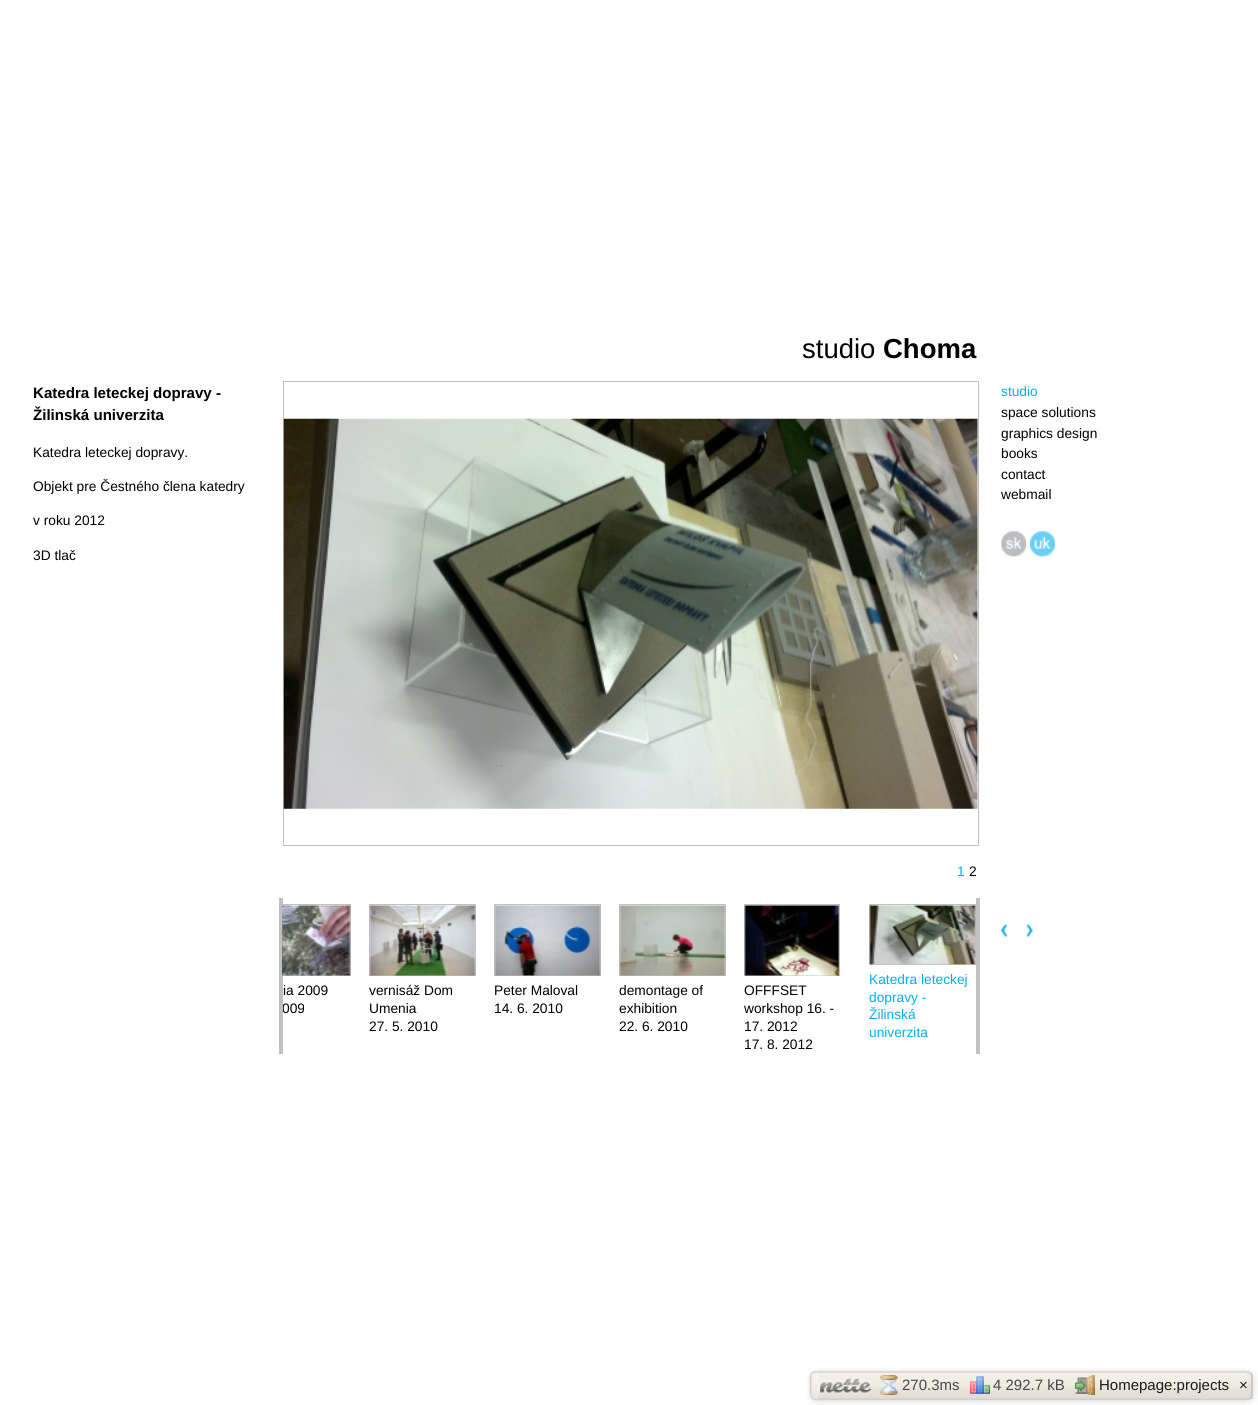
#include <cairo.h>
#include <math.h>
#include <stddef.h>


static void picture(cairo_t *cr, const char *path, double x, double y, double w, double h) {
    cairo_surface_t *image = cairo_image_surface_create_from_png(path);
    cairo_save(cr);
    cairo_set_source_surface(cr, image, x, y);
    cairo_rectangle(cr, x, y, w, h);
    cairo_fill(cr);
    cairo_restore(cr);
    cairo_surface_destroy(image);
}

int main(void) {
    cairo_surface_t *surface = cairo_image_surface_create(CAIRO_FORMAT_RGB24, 1258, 1405);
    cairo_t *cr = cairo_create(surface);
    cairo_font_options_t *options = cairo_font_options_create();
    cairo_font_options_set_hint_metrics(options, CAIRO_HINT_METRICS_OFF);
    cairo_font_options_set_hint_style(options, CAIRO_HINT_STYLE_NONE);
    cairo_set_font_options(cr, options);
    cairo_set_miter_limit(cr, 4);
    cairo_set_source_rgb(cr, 1, 1, 1);
    cairo_paint(cr);
    cairo_select_font_face(cr, "Liberation Sans", CAIRO_FONT_SLANT_NORMAL, CAIRO_FONT_WEIGHT_NORMAL);
    cairo_set_font_size(cr, 27.5);
    cairo_set_source_rgb(cr, 0, 0, 0);
    cairo_move_to(cr, 802, 358);
    cairo_show_text(cr, "studio");
    cairo_select_font_face(cr, "Liberation Sans", CAIRO_FONT_SLANT_NORMAL, CAIRO_FONT_WEIGHT_BOLD);
    cairo_move_to(cr, 883, 358);
    cairo_show_text(cr, "Choma");
    cairo_set_font_size(cr, 15.1);
    cairo_move_to(cr, 33, 398);
    cairo_show_text(cr, "Katedra leteckej dopravy -");
    cairo_move_to(cr, 33, 420);
    cairo_show_text(cr, "Žilinská univerzita");
    cairo_select_font_face(cr, "Liberation Sans", CAIRO_FONT_SLANT_NORMAL, CAIRO_FONT_WEIGHT_NORMAL);
    cairo_set_font_size(cr, 13.75);
    cairo_move_to(cr, 33, 457);
    cairo_show_text(cr, "Katedra leteckej dopravy.");
    cairo_move_to(cr, 33, 491);
    cairo_show_text(cr, "Objekt pre Čestného člena katedry");
    cairo_move_to(cr, 33, 525);
    cairo_show_text(cr, "v roku 2012");
    cairo_move_to(cr, 33, 560);
    cairo_show_text(cr, "3D tlač");
    cairo_rectangle(cr, 283.5, 381.5, 695, 464);
    cairo_set_source_rgb(cr, 0.753, 0.753, 0.753);
    cairo_set_line_width(cr, 1);
    cairo_stroke(cr);
    picture(cr, "img1.png", 283, 418, 695, 391);
    cairo_set_source_rgb(cr, 0, 0.686, 0.941);
    cairo_move_to(cr, 1001, 396);
    cairo_show_text(cr, "studio");
    cairo_set_source_rgb(cr, 0, 0, 0);
    cairo_move_to(cr, 1001, 417);
    cairo_show_text(cr, "space solutions");
    cairo_move_to(cr, 1001, 438);
    cairo_show_text(cr, "graphics design");
    cairo_move_to(cr, 1001, 458);
    cairo_show_text(cr, "books");
    cairo_move_to(cr, 1001, 479);
    cairo_show_text(cr, "contact");
    cairo_move_to(cr, 1001, 499);
    cairo_show_text(cr, "webmail");
    picture(cr, "img2.png", 1001, 531, 26, 26);
    picture(cr, "img3.png", 1030, 531, 25, 26);
    cairo_set_source_rgb(cr, 0, 0.686, 0.941);
    cairo_move_to(cr, 957, 876);
    cairo_show_text(cr, "1");
    cairo_set_source_rgb(cr, 0, 0, 0);
    cairo_move_to(cr, 969, 876);
    cairo_show_text(cr, "2");
    picture(cr, "img4.png", 1001, 923, 7, 15);
    picture(cr, "img5.png", 1026, 923, 7, 15);
    cairo_set_source_rgb(cr, 0.753, 0.753, 0.753);
    cairo_rectangle(cr, 976, 898, 4, 156);
    cairo_fill(cr);
    cairo_rectangle(cr, 279, 898, 4, 156);
    cairo_fill(cr);
    cairo_save(cr);
    cairo_rectangle(cr, 283, 898, 693, 156);
    cairo_clip(cr);
    cairo_rectangle(cr, 244.5, 904.5, 106, 71);
    cairo_stroke(cr);
    cairo_restore(cr);
    picture(cr, "img6.png", 282, 905, 69, 71);
    cairo_set_source_rgb(cr, 0, 0, 0);
    cairo_move_to(cr, 283, 995);
    cairo_show_text(cr, "ia 2009");
    cairo_save(cr);
    cairo_rectangle(cr, 283, 898, 693, 156);
    cairo_clip(cr);
    cairo_move_to(cr, 282, 1013);
    cairo_show_text(cr, "009");
    cairo_restore(cr);
    cairo_rectangle(cr, 369.5, 904.5, 106, 71);
    cairo_set_source_rgb(cr, 0.753, 0.753, 0.753);
    cairo_stroke(cr);
    picture(cr, "img7.png", 369, 905, 107, 71);
    cairo_set_source_rgb(cr, 0, 0, 0);
    cairo_move_to(cr, 369, 995);
    cairo_show_text(cr, "vernisáž Dom");
    cairo_move_to(cr, 369, 1013);
    cairo_show_text(cr, "Umenia");
    cairo_move_to(cr, 369, 1031);
    cairo_show_text(cr, "27. 5. 2010");
    cairo_rectangle(cr, 494.5, 904.5, 106, 71);
    cairo_set_source_rgb(cr, 0.753, 0.753, 0.753);
    cairo_stroke(cr);
    picture(cr, "img8.png", 494, 905, 107, 71);
    cairo_set_source_rgb(cr, 0, 0, 0);
    cairo_move_to(cr, 494, 995);
    cairo_show_text(cr, "Peter Maloval");
    cairo_move_to(cr, 494, 1013);
    cairo_show_text(cr, "14. 6. 2010");
    cairo_rectangle(cr, 619.5, 904.5, 106, 71);
    cairo_set_source_rgb(cr, 0.753, 0.753, 0.753);
    cairo_stroke(cr);
    picture(cr, "img9.png", 619, 905, 107, 71);
    cairo_set_source_rgb(cr, 0, 0, 0);
    cairo_move_to(cr, 619, 995);
    cairo_show_text(cr, "demontage of");
    cairo_move_to(cr, 619, 1013);
    cairo_show_text(cr, "exhibition");
    cairo_move_to(cr, 619, 1031);
    cairo_show_text(cr, "22. 6. 2010");
    cairo_rectangle(cr, 744.5, 904.5, 95, 71);
    cairo_set_source_rgb(cr, 0.753, 0.753, 0.753);
    cairo_stroke(cr);
    picture(cr, "img10.png", 744, 905, 95, 71);
    cairo_set_source_rgb(cr, 0, 0, 0);
    cairo_move_to(cr, 744, 995);
    cairo_show_text(cr, "OFFFSET");
    cairo_move_to(cr, 744, 1013);
    cairo_show_text(cr, "workshop 16. -");
    cairo_move_to(cr, 744, 1031);
    cairo_show_text(cr, "17. 2012");
    cairo_move_to(cr, 744, 1049);
    cairo_show_text(cr, "17. 8. 2012");
    cairo_rectangle(cr, 869.5, 904.5, 106, 60);
    cairo_set_source_rgb(cr, 0.753, 0.753, 0.753);
    cairo_stroke(cr);
    picture(cr, "img11.png", 869, 905, 107, 60);
    cairo_set_source_rgb(cr, 0, 0.686, 0.941);
    cairo_move_to(cr, 869, 984);
    cairo_show_text(cr, "Katedra leteckej");
    cairo_move_to(cr, 869, 1002);
    cairo_show_text(cr, "dopravy -");
    cairo_move_to(cr, 869, 1019);
    cairo_show_text(cr, "Žilinská");
    cairo_move_to(cr, 869, 1037);
    cairo_show_text(cr, "univerzita");
    cairo_set_source_rgb(cr, 0.937, 0.925, 0.89);
    cairo_rectangle(cr, 818, 1373, 435, 26);
    cairo_fill(cr);
    picture(cr, "img12.png", 807, 1369, 11, 36);
    picture(cr, "img13.png", 817, 1368, 429, 37);
    picture(cr, "img14.png", 1246, 1369, 12, 36);
    picture(cr, "img15.png", 817, 1377, 56, 18);
    picture(cr, "img16.png", 879, 1375, 19, 20);
    cairo_set_font_size(cr, 15);
    cairo_set_source_rgb(cr, 0.278, 0.278, 0.278);
    cairo_move_to(cr, 902, 1390);
    cairo_show_text(cr, "270.3ms");
    picture(cr, "img17.png", 970, 1376, 20, 18);
    cairo_move_to(cr, 993, 1390);
    cairo_show_text(cr, "4 292.7 kB");
    picture(cr, "img18.png", 1075, 1375, 20, 20);
    cairo_set_source_rgb(cr, 0.102, 0.102, 0.102);
    cairo_move_to(cr, 1099, 1390);
    cairo_show_text(cr, "Homepage:projects");
    cairo_move_to(cr, 1239, 1390);
    cairo_show_text(cr, "×");
    cairo_surface_write_to_png(surface, "page.png");
    cairo_font_options_destroy(options);
    cairo_destroy(cr);
    cairo_surface_destroy(surface);
    return 0;
}
